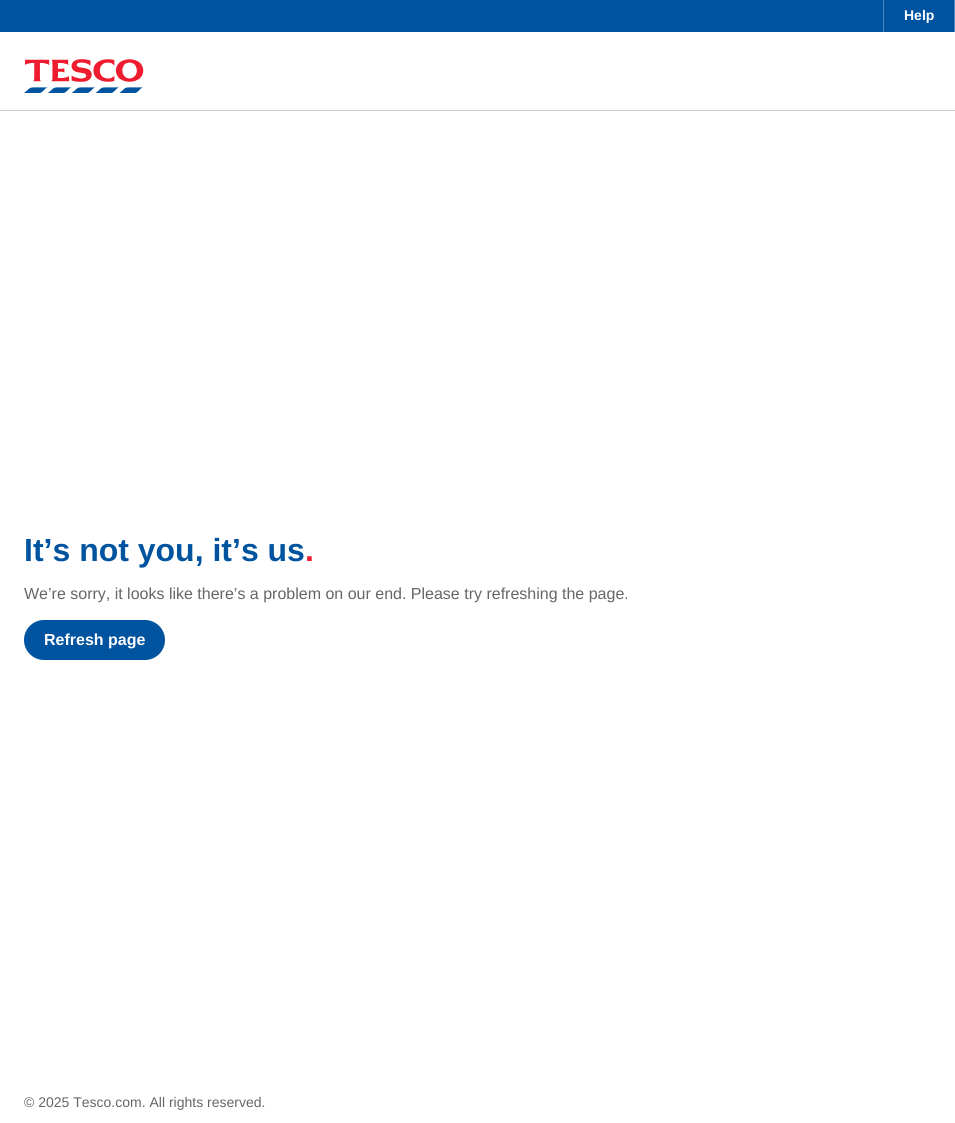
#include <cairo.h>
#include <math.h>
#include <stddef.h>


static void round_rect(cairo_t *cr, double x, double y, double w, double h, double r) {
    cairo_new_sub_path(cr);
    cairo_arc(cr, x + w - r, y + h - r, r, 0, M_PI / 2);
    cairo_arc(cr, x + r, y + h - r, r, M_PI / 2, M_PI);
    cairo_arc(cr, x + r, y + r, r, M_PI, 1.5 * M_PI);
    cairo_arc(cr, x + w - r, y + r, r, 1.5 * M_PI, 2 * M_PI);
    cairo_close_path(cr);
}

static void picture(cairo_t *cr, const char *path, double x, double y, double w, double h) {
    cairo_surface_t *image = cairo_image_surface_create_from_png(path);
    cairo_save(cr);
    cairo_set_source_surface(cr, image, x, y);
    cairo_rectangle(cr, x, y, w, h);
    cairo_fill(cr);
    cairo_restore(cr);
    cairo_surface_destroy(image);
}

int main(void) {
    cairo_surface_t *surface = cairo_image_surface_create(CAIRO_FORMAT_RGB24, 955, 1123);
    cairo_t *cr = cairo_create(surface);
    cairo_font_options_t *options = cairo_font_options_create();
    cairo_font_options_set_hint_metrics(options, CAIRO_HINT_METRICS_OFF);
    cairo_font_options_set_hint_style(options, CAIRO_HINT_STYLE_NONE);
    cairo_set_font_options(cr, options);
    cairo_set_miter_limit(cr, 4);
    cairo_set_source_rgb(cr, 1, 1, 1);
    cairo_paint(cr);
    cairo_set_source_rgb(cr, 0, 0.325, 0.624);
    cairo_rectangle(cr, 0, 0, 954, 32);
    cairo_fill(cr);
    cairo_set_source_rgb(cr, 0.302, 0.529, 0.737);
    cairo_rectangle(cr, 954, 0, 1, 32);
    cairo_fill(cr);
    cairo_rectangle(cr, 883, 0, 1, 32);
    cairo_fill(cr);
    cairo_select_font_face(cr, "Liberation Sans", CAIRO_FONT_SLANT_NORMAL, CAIRO_FONT_WEIGHT_BOLD);
    cairo_set_font_size(cr, 14);
    cairo_set_source_rgb(cr, 1, 1, 1);
    cairo_move_to(cr, 904, 20);
    cairo_show_text(cr, "Help");
    picture(cr, "img1.png", 24, 59, 120, 34);
    cairo_set_source_rgb(cr, 0.8, 0.8, 0.8);
    cairo_rectangle(cr, 0, 110, 955, 1);
    cairo_fill(cr);
    cairo_set_font_size(cr, 32);
    cairo_set_source_rgb(cr, 0, 0.325, 0.624);
    cairo_move_to(cr, 24, 561);
    cairo_show_text(cr, "It’s not you, it’s us");
    cairo_set_source_rgb(cr, 0.933, 0.11, 0.18);
    cairo_move_to(cr, 305, 561);
    cairo_show_text(cr, ".");
    cairo_select_font_face(cr, "Liberation Sans", CAIRO_FONT_SLANT_NORMAL, CAIRO_FONT_WEIGHT_NORMAL);
    cairo_set_font_size(cr, 16);
    cairo_set_source_rgb(cr, 0.4, 0.4, 0.4);
    cairo_move_to(cr, 24, 599);
    cairo_show_text(cr, "We’re sorry, it looks like there’s a problem on our end. Please try refreshing the page.");
    cairo_set_source_rgb(cr, 0, 0.325, 0.624);
    round_rect(cr, 24, 620, 141, 40, 20);
    cairo_fill(cr);
    cairo_select_font_face(cr, "Liberation Sans", CAIRO_FONT_SLANT_NORMAL, CAIRO_FONT_WEIGHT_BOLD);
    cairo_set_source_rgb(cr, 1, 1, 1);
    cairo_move_to(cr, 44, 645);
    cairo_show_text(cr, "Refresh page");
    cairo_select_font_face(cr, "Liberation Sans", CAIRO_FONT_SLANT_NORMAL, CAIRO_FONT_WEIGHT_NORMAL);
    cairo_set_font_size(cr, 14);
    cairo_set_source_rgb(cr, 0.4, 0.4, 0.4);
    cairo_move_to(cr, 24, 1107);
    cairo_show_text(cr, "© 2025 Tesco.com. All rights reserved.");
    cairo_surface_write_to_png(surface, "page.png");
    cairo_font_options_destroy(options);
    cairo_destroy(cr);
    cairo_surface_destroy(surface);
    return 0;
}
